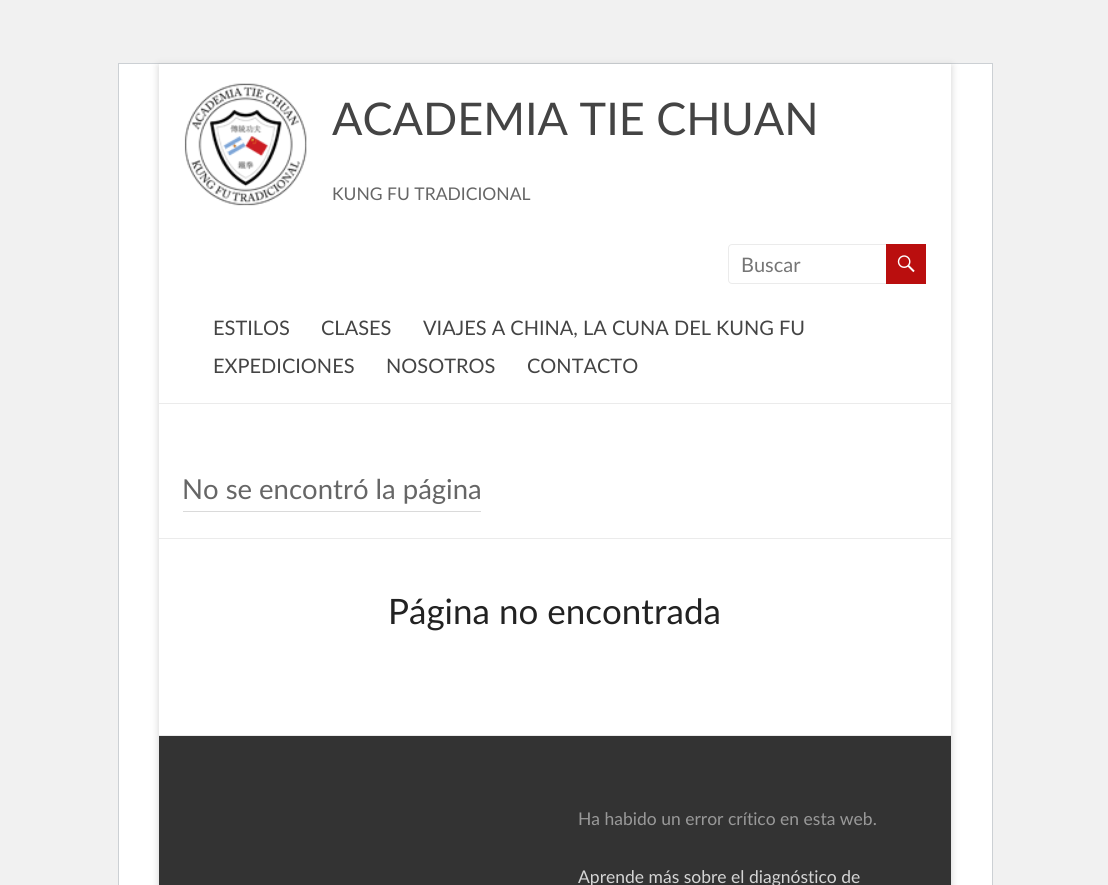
#include <cairo.h>
#include <math.h>
#include <stddef.h>


static void round_rect(cairo_t *cr, double x, double y, double w, double h, double r) {
    cairo_new_sub_path(cr);
    cairo_arc(cr, x + w - r, y + h - r, r, 0, M_PI / 2);
    cairo_arc(cr, x + r, y + h - r, r, M_PI / 2, M_PI);
    cairo_arc(cr, x + r, y + r, r, M_PI, 1.5 * M_PI);
    cairo_arc(cr, x + w - r, y + r, r, 1.5 * M_PI, 2 * M_PI);
    cairo_close_path(cr);
}

static void shadow(cairo_t *cr, double x, double y, double w, double h, double r, double blur, double alpha) {
    cairo_push_group_with_content(cr, CAIRO_CONTENT_ALPHA);
    cairo_set_operator(cr, CAIRO_OPERATOR_SOURCE);
    for (int i = 15; i >= -15 && fmin(w, h) + blur * i / 3 > 0; i -= 2) {
        double e = blur * i / 6;
        cairo_set_source_rgba(cr, 0, 0, 0, alpha * erfc((i - 1) / 8.5) / 2);
        round_rect(cr, x - e, y - e, w + 2 * e, h + 2 * e, fmax(0, fmin(r + e + blur * .6, fmin(w, h) / 2 + e)));
        cairo_fill(cr);
    }
    cairo_pattern_t *soft = cairo_pop_group(cr);
    cairo_mask(cr, soft);
    cairo_pattern_destroy(soft);
}

static void picture(cairo_t *cr, const char *path, double x, double y, double w, double h) {
    cairo_surface_t *image = cairo_image_surface_create_from_png(path);
    cairo_save(cr);
    cairo_set_source_surface(cr, image, x, y);
    cairo_rectangle(cr, x, y, w, h);
    cairo_fill(cr);
    cairo_restore(cr);
    cairo_surface_destroy(image);
}

int main(void) {
    cairo_surface_t *surface = cairo_image_surface_create(CAIRO_FORMAT_RGB24, 1108, 885);
    cairo_t *cr = cairo_create(surface);
    cairo_font_options_t *options = cairo_font_options_create();
    cairo_font_options_set_hint_metrics(options, CAIRO_HINT_METRICS_OFF);
    cairo_font_options_set_hint_style(options, CAIRO_HINT_STYLE_NONE);
    cairo_set_font_options(cr, options);
    cairo_set_miter_limit(cr, 4);
    cairo_set_source_rgb(cr, 0.945, 0.945, 0.945);
    cairo_paint(cr);
    cairo_set_source_rgb(cr, 1, 1, 1);
    cairo_rectangle(cr, 118.5, 63.5, 874, 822);
    cairo_fill_preserve(cr);
    cairo_set_source_rgb(cr, 0.8, 0.816, 0.831);
    cairo_set_line_width(cr, 1);
    cairo_stroke(cr);
    cairo_save(cr);
    cairo_set_fill_rule(cr, CAIRO_FILL_RULE_EVEN_ODD);
    cairo_new_path(cr);
    cairo_move_to(cr, 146, 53);
    cairo_line_to(cr, 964, 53);
    cairo_line_to(cr, 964, 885);
    cairo_line_to(cr, 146, 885);
    cairo_close_path(cr);
    cairo_move_to(cr, 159, 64);
    cairo_line_to(cr, 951, 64);
    cairo_line_to(cr, 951, 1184);
    cairo_line_to(cr, 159, 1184);
    cairo_close_path(cr);
    cairo_clip(cr);
    cairo_set_source_rgb(cr, 0.392, 0.392, 0.392);
    shadow(cr, 159, 66, 792, 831, 0, 4, 0.3);
    cairo_restore(cr);
    cairo_set_source_rgb(cr, 0.918, 0.918, 0.918);
    cairo_rectangle(cr, 159, 403, 792, 1);
    cairo_fill(cr);
    picture(cr, "img1.png", 184, 83, 123, 123);
    cairo_select_font_face(cr, "Lato", CAIRO_FONT_SLANT_NORMAL, CAIRO_FONT_WEIGHT_NORMAL);
    cairo_set_font_size(cr, 45);
    cairo_set_source_rgb(cr, 0.267, 0.267, 0.267);
    cairo_move_to(cr, 332, 135);
    cairo_show_text(cr, "ACADEMIA TIE CHUAN");
    cairo_set_font_size(cr, 17.5);
    cairo_set_source_rgb(cr, 0.4, 0.4, 0.4);
    cairo_move_to(cr, 332, 200);
    cairo_show_text(cr, "KUNG FU TRADICIONAL");
    round_rect(cr, 728.5, 244.5, 161, 39, 3.5);
    cairo_set_source_rgb(cr, 0.918, 0.918, 0.918);
    cairo_stroke(cr);
    cairo_set_font_size(cr, 20);
    cairo_set_source_rgb(cr, 0.459, 0.459, 0.459);
    cairo_move_to(cr, 741, 272);
    cairo_show_text(cr, "Buscar");
    cairo_set_source_rgb(cr, 0.729, 0.055, 0.055);
    cairo_rectangle(cr, 886, 244, 40, 40);
    cairo_fill(cr);
    picture(cr, "img2.png", 897, 255, 18, 18);
    cairo_set_source_rgb(cr, 0.267, 0.267, 0.267);
    cairo_move_to(cr, 213, 335);
    cairo_show_text(cr, "ESTILOS");
    cairo_move_to(cr, 321, 335);
    cairo_show_text(cr, "CLASES");
    cairo_move_to(cr, 423, 335);
    cairo_show_text(cr, "VIAJES A CHINA, LA CUNA DEL KUNG FU");
    cairo_move_to(cr, 213, 373);
    cairo_show_text(cr, "EXPEDICIONES");
    cairo_move_to(cr, 386, 373);
    cairo_show_text(cr, "NOSOTROS");
    cairo_move_to(cr, 527, 373);
    cairo_show_text(cr, "CONTACTO");
    cairo_set_source_rgb(cr, 0.918, 0.918, 0.918);
    cairo_rectangle(cr, 159, 538, 792, 1);
    cairo_fill(cr);
    cairo_set_source_rgb(cr, 0.855, 0.855, 0.855);
    cairo_rectangle(cr, 183, 511, 298, 1);
    cairo_fill(cr);
    cairo_set_font_size(cr, 27.5);
    cairo_set_source_rgb(cr, 0.4, 0.4, 0.4);
    cairo_move_to(cr, 182, 499);
    cairo_show_text(cr, "No se encontró la página");
    cairo_set_font_size(cr, 35);
    cairo_set_source_rgb(cr, 0.133, 0.133, 0.133);
    cairo_move_to(cr, 388, 624);
    cairo_show_text(cr, "Página no encontrada");
    cairo_set_source_rgb(cr, 0.2, 0.2, 0.2);
    cairo_rectangle(cr, 159, 736, 792, 149);
    cairo_fill(cr);
    cairo_set_source_rgb(cr, 0.918, 0.918, 0.918);
    cairo_rectangle(cr, 159, 735, 792, 1);
    cairo_fill(cr);
    cairo_set_font_size(cr, 17.5);
    cairo_set_source_rgb(cr, 0.6, 0.6, 0.6);
    cairo_move_to(cr, 578, 825);
    cairo_show_text(cr, "Ha habido un error crítico en esta web.");
    cairo_set_source_rgb(cr, 0.835, 0.835, 0.835);
    cairo_move_to(cr, 578, 883);
    cairo_show_text(cr, "Aprende más sobre el diagnóstico de");
    cairo_surface_write_to_png(surface, "page.png");
    cairo_font_options_destroy(options);
    cairo_destroy(cr);
    cairo_surface_destroy(surface);
    return 0;
}
